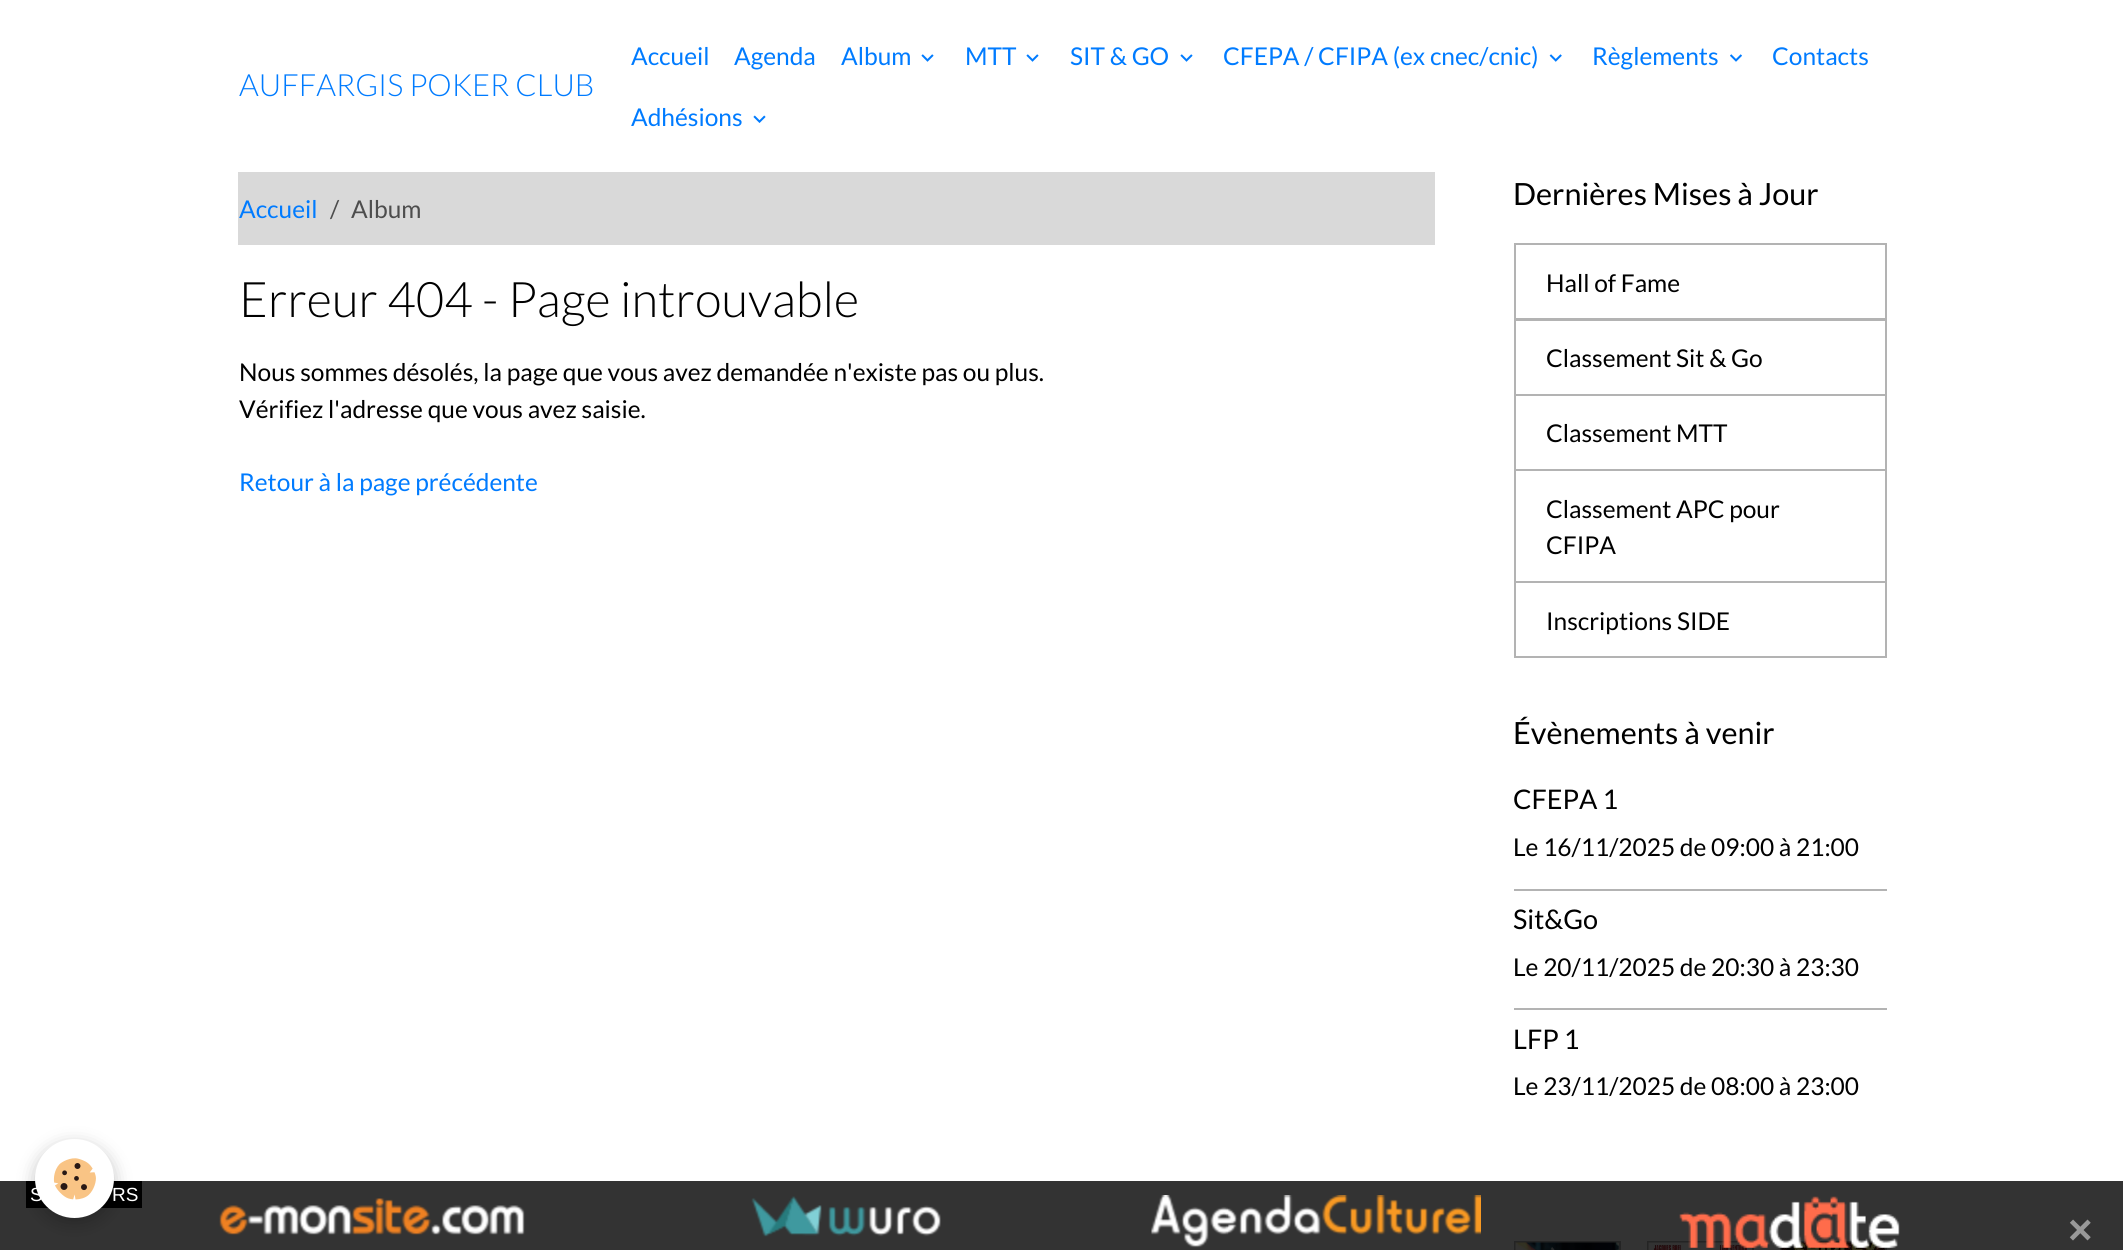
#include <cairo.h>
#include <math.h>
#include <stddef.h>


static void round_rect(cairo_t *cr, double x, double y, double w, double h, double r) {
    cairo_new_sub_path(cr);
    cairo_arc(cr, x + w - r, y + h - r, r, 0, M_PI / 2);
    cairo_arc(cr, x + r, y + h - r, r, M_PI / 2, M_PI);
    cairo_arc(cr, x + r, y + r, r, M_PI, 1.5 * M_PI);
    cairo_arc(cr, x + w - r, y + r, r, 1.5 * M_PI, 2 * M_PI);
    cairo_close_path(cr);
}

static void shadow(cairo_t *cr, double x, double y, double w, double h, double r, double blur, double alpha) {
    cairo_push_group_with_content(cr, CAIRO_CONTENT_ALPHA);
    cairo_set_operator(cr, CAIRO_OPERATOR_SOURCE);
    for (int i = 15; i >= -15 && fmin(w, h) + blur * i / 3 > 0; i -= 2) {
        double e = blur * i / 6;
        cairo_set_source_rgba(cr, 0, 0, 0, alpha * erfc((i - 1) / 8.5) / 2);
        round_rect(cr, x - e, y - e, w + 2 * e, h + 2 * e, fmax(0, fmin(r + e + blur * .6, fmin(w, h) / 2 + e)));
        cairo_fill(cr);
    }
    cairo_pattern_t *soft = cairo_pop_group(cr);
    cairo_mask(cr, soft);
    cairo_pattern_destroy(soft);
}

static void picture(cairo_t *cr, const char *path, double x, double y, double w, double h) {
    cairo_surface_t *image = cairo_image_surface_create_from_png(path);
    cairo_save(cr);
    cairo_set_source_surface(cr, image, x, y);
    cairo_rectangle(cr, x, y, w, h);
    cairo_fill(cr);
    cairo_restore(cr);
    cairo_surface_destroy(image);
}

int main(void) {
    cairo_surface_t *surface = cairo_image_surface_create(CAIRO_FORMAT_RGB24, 2123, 1250);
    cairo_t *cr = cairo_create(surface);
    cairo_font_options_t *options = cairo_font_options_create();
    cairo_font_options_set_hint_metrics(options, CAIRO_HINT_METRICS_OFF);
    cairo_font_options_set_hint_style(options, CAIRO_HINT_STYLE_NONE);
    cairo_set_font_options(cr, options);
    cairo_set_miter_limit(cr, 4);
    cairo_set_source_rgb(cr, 1, 1, 1);
    cairo_paint(cr);
    cairo_select_font_face(cr, "Lato Light", CAIRO_FONT_SLANT_NORMAL, CAIRO_FONT_WEIGHT_NORMAL);
    cairo_set_font_size(cr, 30.6);
    cairo_set_source_rgb(cr, 0, 0.482, 1);
    cairo_move_to(cr, 239, 96);
    cairo_show_text(cr, "AUFFARGIS POKER CLUB");
    cairo_select_font_face(cr, "Lato", CAIRO_FONT_SLANT_NORMAL, CAIRO_FONT_WEIGHT_NORMAL);
    cairo_set_font_size(cr, 24.5);
    cairo_move_to(cr, 631, 65);
    cairo_show_text(cr, "Accueil");
    cairo_move_to(cr, 734, 65);
    cairo_show_text(cr, "Agenda");
    cairo_move_to(cr, 841, 65);
    cairo_show_text(cr, "Album");
    picture(cr, "img1.png", 921, 54, 13, 8);
    cairo_move_to(cr, 965, 65);
    cairo_show_text(cr, "MTT");
    picture(cr, "img1.png", 1026, 54, 13, 8);
    cairo_move_to(cr, 1070, 65);
    cairo_show_text(cr, "SIT & GO");
    picture(cr, "img1.png", 1180, 54, 13, 8);
    cairo_move_to(cr, 1223, 65);
    cairo_show_text(cr, "CFEPA / CFIPA (ex cnec/cnic)");
    picture(cr, "img2.png", 1549, 54, 13, 8);
    cairo_move_to(cr, 1592, 65);
    cairo_show_text(cr, "Règlements");
    picture(cr, "img3.png", 1730, 54, 12, 8);
    cairo_move_to(cr, 1772, 65);
    cairo_show_text(cr, "Contacts");
    cairo_move_to(cr, 631, 126);
    cairo_show_text(cr, "Adhésions");
    picture(cr, "img4.png", 753, 115, 13, 8);
    cairo_set_source_rgb(cr, 0.851, 0.851, 0.851);
    cairo_rectangle(cr, 238, 172, 1197, 73);
    cairo_fill(cr);
    cairo_set_source_rgb(cr, 0, 0.482, 1);
    cairo_move_to(cr, 239, 218);
    cairo_show_text(cr, "Accueil");
    cairo_set_source_rgb(cr, 0.302, 0.302, 0.302);
    cairo_move_to(cr, 330, 218);
    cairo_show_text(cr, "/");
    cairo_move_to(cr, 351, 218);
    cairo_show_text(cr, "Album");
    cairo_select_font_face(cr, "Lato Light", CAIRO_FONT_SLANT_NORMAL, CAIRO_FONT_WEIGHT_NORMAL);
    cairo_set_font_size(cr, 49);
    cairo_set_source_rgb(cr, 0, 0, 0);
    cairo_move_to(cr, 239, 317);
    cairo_show_text(cr, "Erreur 404 - Page introuvable");
    cairo_select_font_face(cr, "Lato", CAIRO_FONT_SLANT_NORMAL, CAIRO_FONT_WEIGHT_NORMAL);
    cairo_set_font_size(cr, 24.5);
    cairo_move_to(cr, 239, 381);
    cairo_show_text(cr, "Nous sommes désolés, la page que vous avez demandée n'existe pas ou plus.");
    cairo_move_to(cr, 239, 418);
    cairo_show_text(cr, "Vérifiez l'adresse que vous avez saisie.");
    cairo_set_source_rgb(cr, 0, 0.482, 1);
    cairo_move_to(cr, 239, 491);
    cairo_show_text(cr, "Retour à la page précédente");
    cairo_set_font_size(cr, 30.6);
    cairo_set_source_rgb(cr, 0, 0, 0);
    cairo_move_to(cr, 1513, 205);
    cairo_show_text(cr, "Dernières Mises à Jour");
    cairo_rectangle(cr, 1515, 244, 371, 75);
    cairo_set_source_rgb(cr, 0.702, 0.702, 0.702);
    cairo_stroke(cr);
    cairo_set_font_size(cr, 24.5);
    cairo_set_source_rgb(cr, 0, 0, 0);
    cairo_move_to(cr, 1546, 292);
    cairo_show_text(cr, "Hall of Fame");
    cairo_rectangle(cr, 1515, 320, 371, 75);
    cairo_set_source_rgb(cr, 0.702, 0.702, 0.702);
    cairo_stroke(cr);
    cairo_set_source_rgb(cr, 0, 0, 0);
    cairo_move_to(cr, 1546, 367);
    cairo_show_text(cr, "Classement Sit & Go");
    cairo_rectangle(cr, 1515, 395, 371, 75);
    cairo_set_source_rgb(cr, 0.702, 0.702, 0.702);
    cairo_stroke(cr);
    cairo_set_source_rgb(cr, 0, 0, 0);
    cairo_move_to(cr, 1546, 442);
    cairo_show_text(cr, "Classement MTT");
    cairo_rectangle(cr, 1515, 470, 371, 112);
    cairo_set_source_rgb(cr, 0.702, 0.702, 0.702);
    cairo_stroke(cr);
    cairo_set_source_rgb(cr, 0, 0, 0);
    cairo_move_to(cr, 1546, 518);
    cairo_show_text(cr, "Classement APC pour");
    cairo_move_to(cr, 1546, 554);
    cairo_show_text(cr, "CFIPA");
    cairo_rectangle(cr, 1515, 582, 371, 75);
    cairo_set_source_rgb(cr, 0.702, 0.702, 0.702);
    cairo_stroke(cr);
    cairo_set_source_rgb(cr, 0, 0, 0);
    cairo_move_to(cr, 1546, 630);
    cairo_show_text(cr, "Inscriptions SIDE");
    cairo_set_font_size(cr, 30.6);
    cairo_move_to(cr, 1513, 744);
    cairo_show_text(cr, "Évènements à venir");
    cairo_set_font_size(cr, 27);
    cairo_move_to(cr, 1513, 809);
    cairo_show_text(cr, "CFEPA 1");
    cairo_set_font_size(cr, 24.5);
    cairo_move_to(cr, 1513, 856);
    cairo_show_text(cr, "Le 16/11/2025 de 09:00 à 21:00");
    cairo_set_source_rgb(cr, 0.702, 0.702, 0.702);
    cairo_rectangle(cr, 1514, 889, 373, 2);
    cairo_fill(cr);
    cairo_set_font_size(cr, 27);
    cairo_set_source_rgb(cr, 0, 0, 0);
    cairo_move_to(cr, 1513, 929);
    cairo_show_text(cr, "Sit&Go");
    cairo_set_font_size(cr, 24.5);
    cairo_move_to(cr, 1513, 976);
    cairo_show_text(cr, "Le 20/11/2025 de 20:30 à 23:30");
    cairo_set_source_rgb(cr, 0.702, 0.702, 0.702);
    cairo_rectangle(cr, 1514, 1008, 373, 2);
    cairo_fill(cr);
    cairo_set_font_size(cr, 27);
    cairo_set_source_rgb(cr, 0, 0, 0);
    cairo_move_to(cr, 1513, 1049);
    cairo_show_text(cr, "LFP 1");
    cairo_set_font_size(cr, 24.5);
    cairo_move_to(cr, 1513, 1095);
    cairo_show_text(cr, "Le 23/11/2025 de 08:00 à 23:00");
    cairo_rectangle(cr, 1515, 1242, 105, 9);
    cairo_set_source_rgb(cr, 0.702, 0.702, 0.702);
    cairo_stroke(cr);
    picture(cr, "img5.png", 1515, 1242, 104, 8);
    cairo_rectangle(cr, 1648, 1242, 105, 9);
    cairo_stroke(cr);
    picture(cr, "img6.png", 1648, 1242, 104, 8);
    cairo_rectangle(cr, 1781, 1242, 105, 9);
    cairo_stroke(cr);
    picture(cr, "img7.png", 1781, 1242, 104, 8);
    cairo_set_source_rgba(cr, 0, 0, 0, 0.8);
    cairo_rectangle(cr, 0, 1181, 2123, 69);
    cairo_fill(cr);
    cairo_set_source_rgb(cr, 0, 0, 0);
    cairo_rectangle(cr, 26, 1181, 116, 27);
    cairo_fill(cr);
    cairo_set_source_rgb(cr, 0, 0, 0);
    shadow(cr, 35, 1145, 79, 78, 39, 9, 0.24);
    cairo_set_source_rgb(cr, 1, 1, 1);
    cairo_arc(cr, 74.5, 1178.5, 39.5, 0, 2 * M_PI);
    cairo_fill(cr);
    picture(cr, "img8.png", 53, 1158, 43, 42);
    cairo_select_font_face(cr, "Liberation Sans", CAIRO_FONT_SLANT_NORMAL, CAIRO_FONT_WEIGHT_NORMAL);
    cairo_set_font_size(cr, 19);
    cairo_move_to(cr, 30, 1201);
    cairo_show_text(cr, "S");
    cairo_move_to(cr, 112, 1201);
    cairo_show_text(cr, "RS");
    picture(cr, "img9.png", 219, 1198, 306, 37);
    picture(cr, "img10.png", 751, 1196, 190, 41);
    picture(cr, "img11.png", 1151, 1195, 330, 53);
    picture(cr, "img12.png", 1679, 1196, 221, 52);
    cairo_select_font_face(cr, "Liberation Sans", CAIRO_FONT_SLANT_NORMAL, CAIRO_FONT_WEIGHT_BOLD);
    cairo_set_font_size(cr, 42);
    cairo_set_source_rgb(cr, 0.6, 0.6, 0.6);
    cairo_move_to(cr, 2068, 1244);
    cairo_show_text(cr, "×");
    cairo_surface_write_to_png(surface, "page.png");
    cairo_font_options_destroy(options);
    cairo_destroy(cr);
    cairo_surface_destroy(surface);
    return 0;
}
